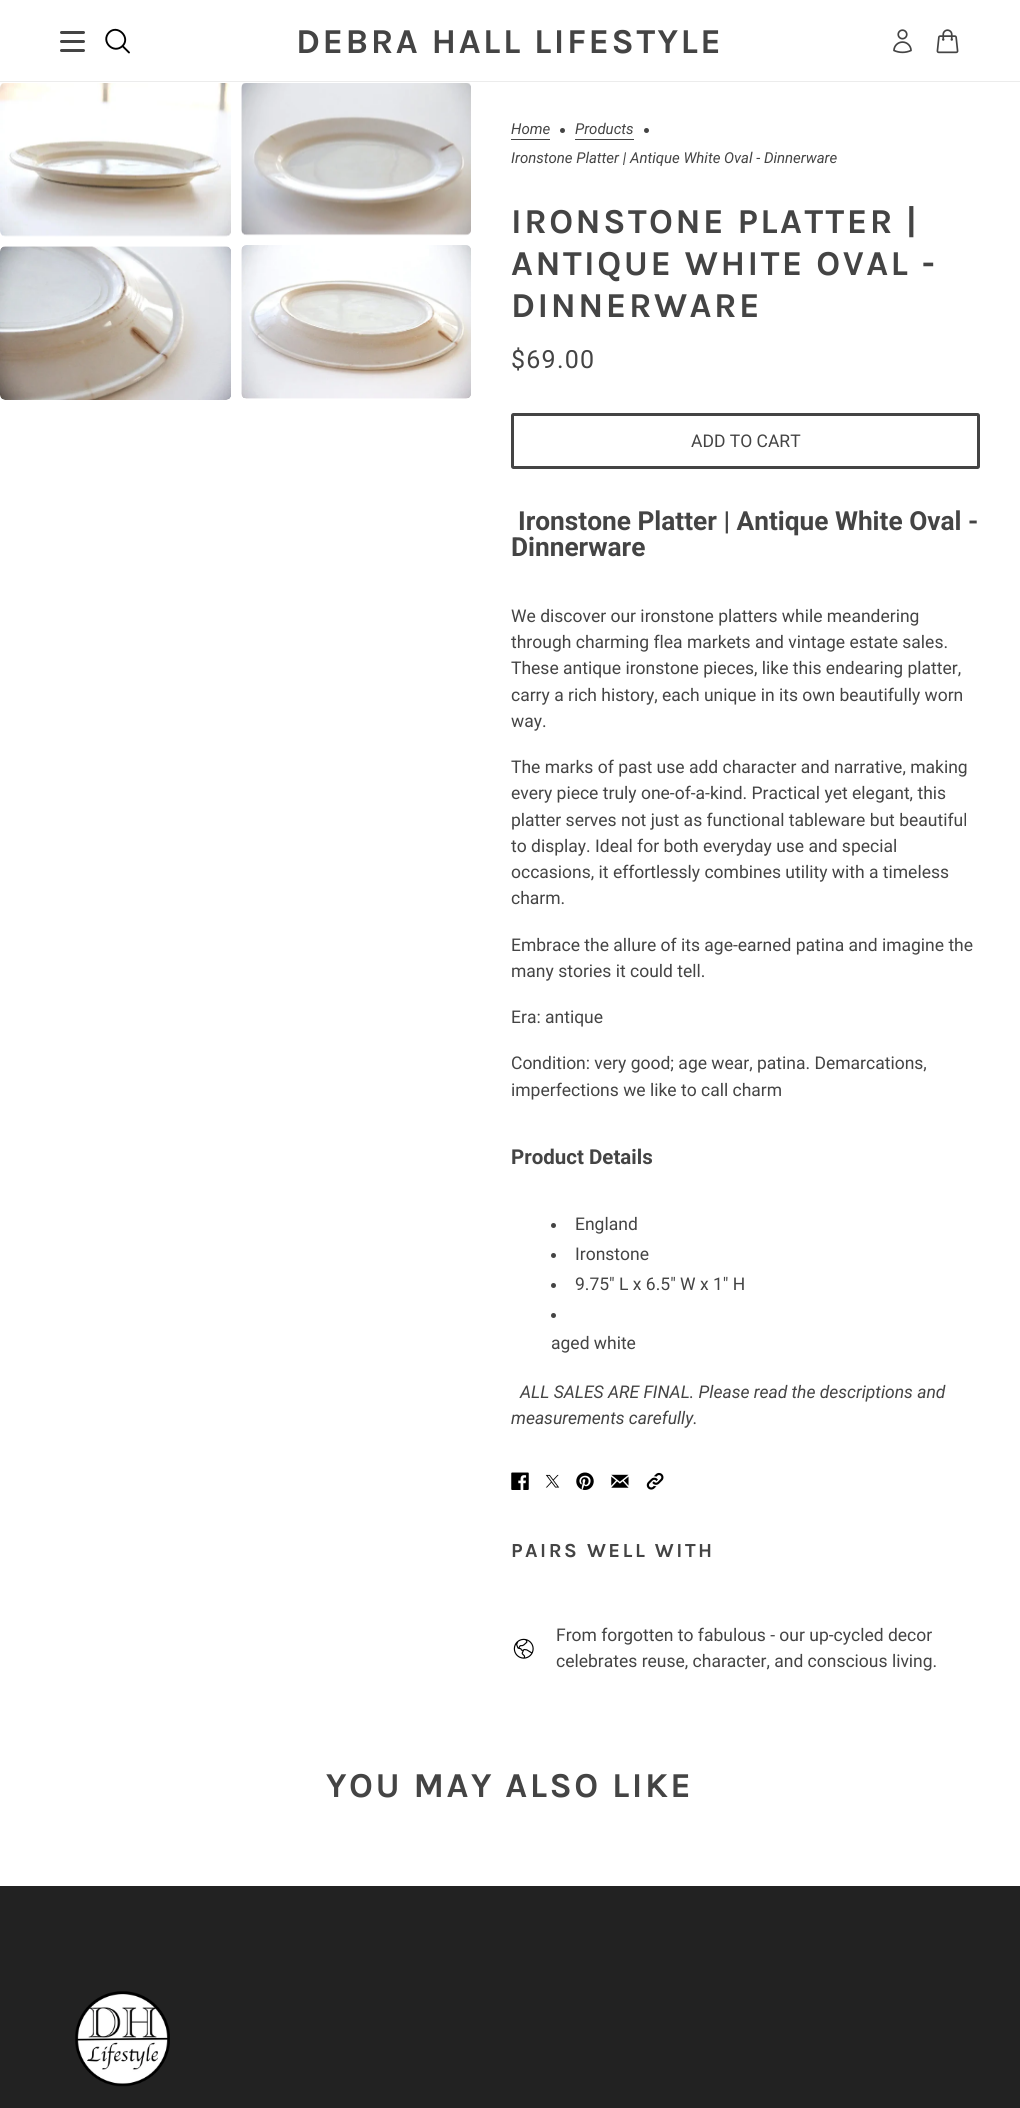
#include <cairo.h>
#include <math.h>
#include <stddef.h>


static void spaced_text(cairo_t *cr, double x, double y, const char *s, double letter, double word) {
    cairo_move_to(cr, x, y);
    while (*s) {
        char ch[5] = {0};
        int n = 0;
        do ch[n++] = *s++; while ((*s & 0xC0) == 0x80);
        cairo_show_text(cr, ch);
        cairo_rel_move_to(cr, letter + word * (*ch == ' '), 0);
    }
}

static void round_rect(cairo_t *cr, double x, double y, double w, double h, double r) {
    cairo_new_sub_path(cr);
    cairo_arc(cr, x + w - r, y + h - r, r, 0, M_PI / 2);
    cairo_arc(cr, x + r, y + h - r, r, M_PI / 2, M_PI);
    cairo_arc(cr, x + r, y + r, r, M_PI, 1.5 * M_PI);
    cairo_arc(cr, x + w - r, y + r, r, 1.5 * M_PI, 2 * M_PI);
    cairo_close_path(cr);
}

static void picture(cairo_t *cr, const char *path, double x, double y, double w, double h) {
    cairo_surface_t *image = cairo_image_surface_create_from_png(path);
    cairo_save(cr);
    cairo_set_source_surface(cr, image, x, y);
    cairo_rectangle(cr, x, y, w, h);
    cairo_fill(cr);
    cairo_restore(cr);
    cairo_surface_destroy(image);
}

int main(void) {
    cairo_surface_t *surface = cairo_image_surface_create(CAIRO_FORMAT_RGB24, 1020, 2108);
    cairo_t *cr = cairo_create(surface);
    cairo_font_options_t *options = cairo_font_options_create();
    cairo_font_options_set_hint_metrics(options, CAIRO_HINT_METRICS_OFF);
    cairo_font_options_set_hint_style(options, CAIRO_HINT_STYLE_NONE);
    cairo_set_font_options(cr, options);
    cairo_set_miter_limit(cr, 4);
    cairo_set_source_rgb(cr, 1, 1, 1);
    cairo_paint(cr);
    cairo_set_source_rgb(cr, 0.267, 0.267, 0.267);
    round_rect(cr, 60, 31, 25, 3, 1.5);
    cairo_fill(cr);
    round_rect(cr, 60, 40, 25, 3, 1.5);
    cairo_fill(cr);
    round_rect(cr, 60, 49, 25, 3, 1.5);
    cairo_fill(cr);
    cairo_new_path(cr);
    cairo_move_to(cr, 129, 52.5);
    cairo_line_to(cr, 122.5, 46);
    cairo_move_to(cr, 122.5, 46);
    cairo_curve_to(cr, 131, 37.5, 117.5, 24, 109, 32.5);
    cairo_curve_to(cr, 100.5, 41.5, 113.5, 54.5, 122.5, 46);
    cairo_close_path(cr);
    cairo_set_source_rgb(cr, 0, 0, 0);
    cairo_set_line_width(cr, 1.9);
    cairo_set_line_cap(cr, CAIRO_LINE_CAP_ROUND);
    cairo_set_line_join(cr, CAIRO_LINE_JOIN_ROUND);
    cairo_stroke(cr);
    cairo_select_font_face(cr, "Karla", CAIRO_FONT_SLANT_NORMAL, CAIRO_FONT_WEIGHT_BOLD);
    cairo_set_font_size(cr, 35);
    cairo_set_source_rgb(cr, 0.267, 0.267, 0.267);
    spaced_text(cr, 296, 53, "DEBRA HALL LIFESTYLE", 2.5, 0);
    picture(cr, "img1.png", 893, 29, 19, 25);
    picture(cr, "img2.png", 936, 29, 23, 25);
    cairo_set_source_rgb(cr, 0.925, 0.925, 0.925);
    cairo_rectangle(cr, 0, 81, 1020, 1);
    cairo_fill(cr);
    picture(cr, "img3.png", 0, 83, 231, 154);
    picture(cr, "img4.png", 241, 83, 230, 153);
    picture(cr, "img5.png", 0, 246, 231, 154);
    picture(cr, "img6.png", 241, 245, 230, 154);
    cairo_select_font_face(cr, "Roboto", CAIRO_FONT_SLANT_ITALIC, CAIRO_FONT_WEIGHT_NORMAL);
    cairo_set_font_size(cr, 15);
    cairo_set_source_rgb(cr, 0.267, 0.267, 0.267);
    cairo_move_to(cr, 511, 134);
    cairo_show_text(cr, "Home");
    cairo_rectangle(cr, 511, 139, 39, 1);
    cairo_fill(cr);
    cairo_arc(cr, 562.5, 130.5, 2.5, 0, 2 * M_PI);
    cairo_fill(cr);
    cairo_move_to(cr, 575, 134);
    cairo_show_text(cr, "Products");
    cairo_rectangle(cr, 575, 139, 59, 1);
    cairo_fill(cr);
    cairo_arc(cr, 646.5, 130.5, 2.5, 0, 2 * M_PI);
    cairo_fill(cr);
    cairo_move_to(cr, 511, 163);
    cairo_show_text(cr, "Ironstone Platter | Antique White Oval - Dinnerware");
    cairo_select_font_face(cr, "Karla", CAIRO_FONT_SLANT_NORMAL, CAIRO_FONT_WEIGHT_BOLD);
    cairo_set_font_size(cr, 35);
    spaced_text(cr, 511, 233, "IRONSTONE PLATTER |", 2.5, 0);
    spaced_text(cr, 511, 275, "ANTIQUE WHITE OVAL -", 2.5, 0);
    spaced_text(cr, 511, 317, "DINNERWARE", 2.5, 0);
    cairo_select_font_face(cr, "Roboto", CAIRO_FONT_SLANT_NORMAL, CAIRO_FONT_WEIGHT_NORMAL);
    cairo_set_font_size(cr, 25);
    spaced_text(cr, 511, 368, "$69.00", 1.25, 0);
    round_rect(cr, 512.5, 414.5, 466, 53, 1);
    cairo_set_line_width(cr, 3);
    cairo_set_line_cap(cr, CAIRO_LINE_CAP_BUTT);
    cairo_set_line_join(cr, CAIRO_LINE_JOIN_MITER);
    cairo_stroke(cr);
    cairo_set_font_size(cr, 17.5);
    cairo_move_to(cr, 691, 447);
    cairo_show_text(cr, "ADD TO CART");
    cairo_select_font_face(cr, "Roboto", CAIRO_FONT_SLANT_NORMAL, CAIRO_FONT_WEIGHT_BOLD);
    cairo_set_font_size(cr, 26.25);
    cairo_move_to(cr, 518, 530);
    cairo_show_text(cr, "Ironstone Platter | Antique White Oval -");
    cairo_move_to(cr, 511, 556);
    cairo_show_text(cr, "Dinnerware");
    cairo_select_font_face(cr, "Roboto", CAIRO_FONT_SLANT_NORMAL, CAIRO_FONT_WEIGHT_NORMAL);
    cairo_set_font_size(cr, 17.5);
    cairo_move_to(cr, 511, 622);
    cairo_show_text(cr, "We discover our ironstone platters while meandering");
    cairo_move_to(cr, 511, 648);
    cairo_show_text(cr, "through charming flea markets and vintage estate sales.");
    cairo_move_to(cr, 511, 674);
    cairo_show_text(cr, "These antique ironstone pieces, like this endearing platter,");
    cairo_move_to(cr, 511, 701);
    cairo_show_text(cr, "carry a rich history, each unique in its own beautifully worn");
    cairo_move_to(cr, 511, 727);
    cairo_show_text(cr, "way.");
    cairo_move_to(cr, 511, 773);
    cairo_show_text(cr, "The marks of past use add character and narrative, making");
    cairo_move_to(cr, 511, 799);
    cairo_show_text(cr, "every piece truly one-of-a-kind. Practical yet elegant, this");
    cairo_move_to(cr, 511, 826);
    cairo_show_text(cr, "platter serves not just as functional tableware but beautiful");
    cairo_move_to(cr, 511, 852);
    cairo_show_text(cr, "to display. Ideal for both everyday use and special");
    cairo_move_to(cr, 511, 878);
    cairo_show_text(cr, "occasions, it effortlessly combines utility with a timeless");
    cairo_move_to(cr, 511, 904);
    cairo_show_text(cr, "charm.");
    cairo_move_to(cr, 511, 951);
    cairo_show_text(cr, "Embrace the allure of its age-earned patina and imagine the");
    cairo_move_to(cr, 511, 977);
    cairo_show_text(cr, "many stories it could tell.");
    cairo_move_to(cr, 511, 1023);
    cairo_show_text(cr, "Era: antique");
    cairo_move_to(cr, 511, 1069);
    cairo_show_text(cr, "Condition: very good; age wear, patina. Demarcations,");
    cairo_move_to(cr, 511, 1096);
    cairo_show_text(cr, "imperfections we like to call charm");
    cairo_select_font_face(cr, "Roboto", CAIRO_FONT_SLANT_NORMAL, CAIRO_FONT_WEIGHT_BOLD);
    cairo_set_font_size(cr, 20.5);
    cairo_move_to(cr, 511, 1164);
    cairo_show_text(cr, "Product Details");
    cairo_new_path(cr);
    cairo_arc(cr, 553.5, 1225.5, 2.5, 0, 2 * M_PI);
    cairo_fill(cr);
    cairo_select_font_face(cr, "Roboto", CAIRO_FONT_SLANT_NORMAL, CAIRO_FONT_WEIGHT_NORMAL);
    cairo_set_font_size(cr, 17.5);
    cairo_move_to(cr, 575, 1230);
    cairo_show_text(cr, "England");
    cairo_new_path(cr);
    cairo_arc(cr, 553.5, 1255.5, 2.5, 0, 2 * M_PI);
    cairo_fill(cr);
    cairo_move_to(cr, 575, 1260);
    cairo_show_text(cr, "Ironstone");
    cairo_new_path(cr);
    cairo_arc(cr, 553.5, 1285.5, 2.5, 0, 2 * M_PI);
    cairo_fill(cr);
    cairo_move_to(cr, 575, 1290);
    cairo_show_text(cr, "9.75\" L x 6.5\" W x 1\" H");
    cairo_new_path(cr);
    cairo_arc(cr, 553.5, 1315.5, 2.5, 0, 2 * M_PI);
    cairo_fill(cr);
    cairo_move_to(cr, 551, 1349);
    cairo_show_text(cr, "aged white");
    cairo_select_font_face(cr, "Roboto", CAIRO_FONT_SLANT_ITALIC, CAIRO_FONT_WEIGHT_NORMAL);
    cairo_move_to(cr, 520, 1398);
    cairo_show_text(cr, "ALL SALES ARE FINAL. Please read the descriptions and");
    cairo_move_to(cr, 511, 1424);
    cairo_show_text(cr, "measurements carefully.");
    picture(cr, "img7.png", 511, 1472, 18, 18);
    picture(cr, "img8.png", 545, 1474, 15, 14);
    picture(cr, "img9.png", 576, 1472, 18, 18);
    picture(cr, "img10.png", 611, 1474, 18, 14);
    picture(cr, "img11.png", 646, 1472, 18, 18);
    cairo_select_font_face(cr, "Karla", CAIRO_FONT_SLANT_NORMAL, CAIRO_FONT_WEIGHT_BOLD);
    cairo_set_font_size(cr, 20);
    spaced_text(cr, 511, 1557, "PAIRS WELL WITH", 2.5, 0);
    picture(cr, "img12.png", 513, 1638, 21, 21);
    cairo_select_font_face(cr, "Roboto", CAIRO_FONT_SLANT_NORMAL, CAIRO_FONT_WEIGHT_NORMAL);
    cairo_set_font_size(cr, 17.5);
    cairo_move_to(cr, 556, 1641);
    cairo_show_text(cr, "From forgotten to fabulous - our up-cycled decor");
    cairo_move_to(cr, 556, 1667);
    cairo_show_text(cr, "celebrates reuse, character, and conscious living.");
    cairo_select_font_face(cr, "Karla", CAIRO_FONT_SLANT_NORMAL, CAIRO_FONT_WEIGHT_BOLD);
    cairo_set_font_size(cr, 35);
    spaced_text(cr, 326, 1797, "YOU MAY ALSO LIKE", 2.5, 0);
    cairo_set_source_rgb(cr, 0.133, 0.133, 0.133);
    cairo_rectangle(cr, 0, 1886, 1020, 222);
    cairo_fill(cr);
    picture(cr, "img13.png", 75, 1991, 95, 96);
    cairo_surface_write_to_png(surface, "page.png");
    cairo_font_options_destroy(options);
    cairo_destroy(cr);
    cairo_surface_destroy(surface);
    return 0;
}
